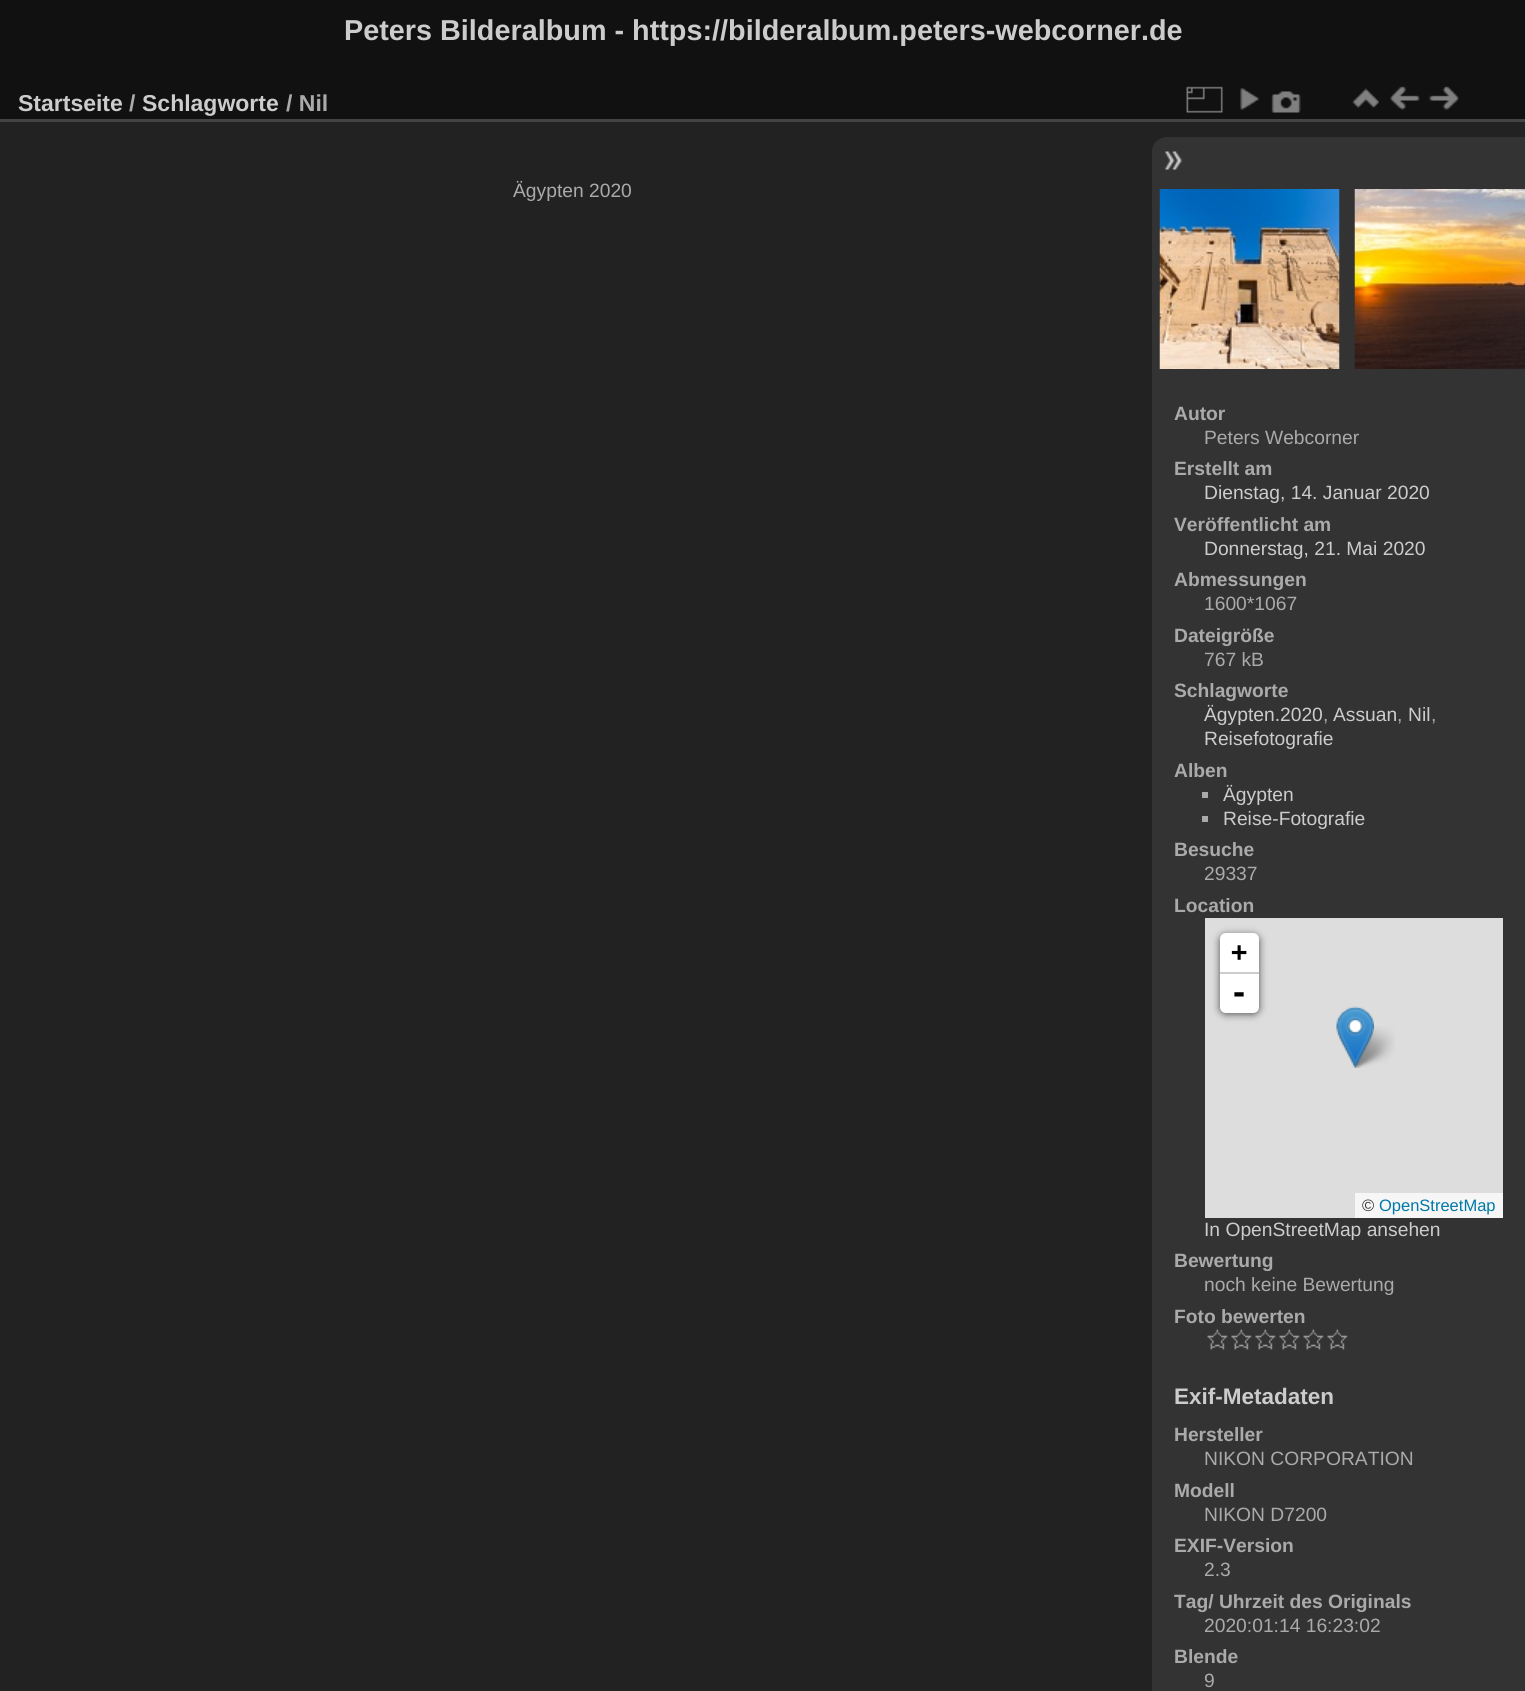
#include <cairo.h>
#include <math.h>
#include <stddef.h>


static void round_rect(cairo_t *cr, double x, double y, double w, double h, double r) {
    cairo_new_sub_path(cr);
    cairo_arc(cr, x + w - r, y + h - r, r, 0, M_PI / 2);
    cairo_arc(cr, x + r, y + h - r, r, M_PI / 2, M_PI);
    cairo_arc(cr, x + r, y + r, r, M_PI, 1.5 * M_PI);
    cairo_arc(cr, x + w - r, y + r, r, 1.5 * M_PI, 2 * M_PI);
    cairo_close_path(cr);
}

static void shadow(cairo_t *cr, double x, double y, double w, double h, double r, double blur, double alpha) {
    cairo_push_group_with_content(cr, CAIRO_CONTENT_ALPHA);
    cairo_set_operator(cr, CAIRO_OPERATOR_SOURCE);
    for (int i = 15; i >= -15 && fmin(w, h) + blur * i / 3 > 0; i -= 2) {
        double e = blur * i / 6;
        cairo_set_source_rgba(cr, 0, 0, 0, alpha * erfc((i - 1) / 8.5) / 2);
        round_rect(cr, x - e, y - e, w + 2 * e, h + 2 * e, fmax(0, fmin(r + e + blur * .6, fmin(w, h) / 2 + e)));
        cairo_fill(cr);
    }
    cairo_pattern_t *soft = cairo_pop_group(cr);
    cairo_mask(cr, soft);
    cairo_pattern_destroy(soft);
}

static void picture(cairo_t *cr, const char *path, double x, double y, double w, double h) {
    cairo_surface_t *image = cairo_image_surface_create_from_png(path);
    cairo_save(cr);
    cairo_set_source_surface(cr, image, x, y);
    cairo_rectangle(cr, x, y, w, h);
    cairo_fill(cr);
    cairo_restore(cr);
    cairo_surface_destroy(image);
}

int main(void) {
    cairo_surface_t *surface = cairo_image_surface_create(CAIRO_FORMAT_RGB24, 1525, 1691);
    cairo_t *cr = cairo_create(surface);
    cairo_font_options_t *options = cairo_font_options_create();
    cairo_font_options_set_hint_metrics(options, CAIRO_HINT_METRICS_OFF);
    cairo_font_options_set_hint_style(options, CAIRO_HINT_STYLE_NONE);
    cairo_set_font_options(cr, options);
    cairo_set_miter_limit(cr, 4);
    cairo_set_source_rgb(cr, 0.067, 0.067, 0.067);
    cairo_paint(cr);
    cairo_select_font_face(cr, "Liberation Sans", CAIRO_FONT_SLANT_NORMAL, CAIRO_FONT_WEIGHT_BOLD);
    cairo_set_font_size(cr, 28.8);
    cairo_set_source_rgb(cr, 0.8, 0.8, 0.8);
    cairo_move_to(cr, 344, 40);
    cairo_show_text(cr, "Peters Bilderalbum - https://bilderalbum.peters-webcorner.de");
    cairo_set_source_rgb(cr, 0.133, 0.133, 0.133);
    cairo_rectangle(cr, 0, 122, 1525, 1569);
    cairo_fill(cr);
    cairo_set_source_rgb(cr, 0.267, 0.267, 0.267);
    cairo_rectangle(cr, 0, 119, 1525, 3);
    cairo_fill(cr);
    cairo_set_font_size(cr, 23);
    cairo_set_source_rgb(cr, 0.8, 0.8, 0.8);
    cairo_move_to(cr, 18, 111);
    cairo_show_text(cr, "Startseite");
    cairo_set_source_rgb(cr, 0.667, 0.667, 0.667);
    cairo_move_to(cr, 129, 111);
    cairo_show_text(cr, "/");
    cairo_set_source_rgb(cr, 0.8, 0.8, 0.8);
    cairo_move_to(cr, 142, 111);
    cairo_show_text(cr, "Schlagworte");
    cairo_set_source_rgb(cr, 0.667, 0.667, 0.667);
    cairo_move_to(cr, 286, 111);
    cairo_show_text(cr, "/ Nil");
    picture(cr, "img1.png", 1186, 86, 37, 27);
    picture(cr, "img2.png", 1240, 88, 19, 22);
    picture(cr, "img3.png", 1271, 91, 30, 22);
    picture(cr, "img4.png", 1352, 88, 27, 21);
    picture(cr, "img5.png", 1390, 86, 30, 24);
    picture(cr, "img6.png", 1429, 86, 30, 24);
    cairo_set_source_rgb(cr, 0.2, 0.2, 0.2);
    cairo_new_path(cr);
    cairo_move_to(cr, 1167, 137);
    cairo_line_to(cr, 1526, 137);
    cairo_line_to(cr, 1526, 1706);
    cairo_line_to(cr, 1167, 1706);
    cairo_curve_to(cr, 1158.5, 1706, 1152, 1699.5, 1152, 1691);
    cairo_line_to(cr, 1152, 152);
    cairo_curve_to(cr, 1152, 143.5, 1158.5, 137, 1167, 137);
    cairo_close_path(cr);
    cairo_fill(cr);
    picture(cr, "img7.png", 1164, 151, 19, 19);
    cairo_select_font_face(cr, "Liberation Sans", CAIRO_FONT_SLANT_NORMAL, CAIRO_FONT_WEIGHT_NORMAL);
    cairo_set_font_size(cr, 19.25);
    cairo_set_source_rgb(cr, 0.667, 0.667, 0.667);
    cairo_move_to(cr, 513, 197);
    cairo_show_text(cr, "Ägypten 2020");
    picture(cr, "img8.png", 1159, 189, 181, 180);
    picture(cr, "img9.png", 1354, 189, 171, 180);
    cairo_select_font_face(cr, "Liberation Sans", CAIRO_FONT_SLANT_NORMAL, CAIRO_FONT_WEIGHT_BOLD);
    cairo_move_to(cr, 1174, 420);
    cairo_show_text(cr, "Autor");
    cairo_select_font_face(cr, "Liberation Sans", CAIRO_FONT_SLANT_NORMAL, CAIRO_FONT_WEIGHT_NORMAL);
    cairo_move_to(cr, 1204, 444);
    cairo_show_text(cr, "Peters Webcorner");
    cairo_select_font_face(cr, "Liberation Sans", CAIRO_FONT_SLANT_NORMAL, CAIRO_FONT_WEIGHT_BOLD);
    cairo_move_to(cr, 1174, 475);
    cairo_show_text(cr, "Erstellt am");
    cairo_select_font_face(cr, "Liberation Sans", CAIRO_FONT_SLANT_NORMAL, CAIRO_FONT_WEIGHT_NORMAL);
    cairo_set_source_rgb(cr, 0.8, 0.8, 0.8);
    cairo_move_to(cr, 1204, 499);
    cairo_show_text(cr, "Dienstag, 14. Januar 2020");
    cairo_select_font_face(cr, "Liberation Sans", CAIRO_FONT_SLANT_NORMAL, CAIRO_FONT_WEIGHT_BOLD);
    cairo_set_source_rgb(cr, 0.667, 0.667, 0.667);
    cairo_move_to(cr, 1174, 531);
    cairo_show_text(cr, "Veröffentlicht am");
    cairo_select_font_face(cr, "Liberation Sans", CAIRO_FONT_SLANT_NORMAL, CAIRO_FONT_WEIGHT_NORMAL);
    cairo_set_source_rgb(cr, 0.8, 0.8, 0.8);
    cairo_move_to(cr, 1204, 555);
    cairo_show_text(cr, "Donnerstag, 21. Mai 2020");
    cairo_select_font_face(cr, "Liberation Sans", CAIRO_FONT_SLANT_NORMAL, CAIRO_FONT_WEIGHT_BOLD);
    cairo_set_source_rgb(cr, 0.667, 0.667, 0.667);
    cairo_move_to(cr, 1174, 586);
    cairo_show_text(cr, "Abmessungen");
    cairo_select_font_face(cr, "Liberation Sans", CAIRO_FONT_SLANT_NORMAL, CAIRO_FONT_WEIGHT_NORMAL);
    cairo_move_to(cr, 1204, 610);
    cairo_show_text(cr, "1600*1067");
    cairo_select_font_face(cr, "Liberation Sans", CAIRO_FONT_SLANT_NORMAL, CAIRO_FONT_WEIGHT_BOLD);
    cairo_move_to(cr, 1174, 642);
    cairo_show_text(cr, "Dateigröße");
    cairo_select_font_face(cr, "Liberation Sans", CAIRO_FONT_SLANT_NORMAL, CAIRO_FONT_WEIGHT_NORMAL);
    cairo_move_to(cr, 1204, 666);
    cairo_show_text(cr, "767 kB");
    cairo_select_font_face(cr, "Liberation Sans", CAIRO_FONT_SLANT_NORMAL, CAIRO_FONT_WEIGHT_BOLD);
    cairo_move_to(cr, 1174, 697);
    cairo_show_text(cr, "Schlagworte");
    cairo_select_font_face(cr, "Liberation Sans", CAIRO_FONT_SLANT_NORMAL, CAIRO_FONT_WEIGHT_NORMAL);
    cairo_set_source_rgb(cr, 0.8, 0.8, 0.8);
    cairo_move_to(cr, 1204, 721);
    cairo_show_text(cr, "Ägypten.2020");
    cairo_set_source_rgb(cr, 0.667, 0.667, 0.667);
    cairo_move_to(cr, 1323, 721);
    cairo_show_text(cr, ",");
    cairo_set_source_rgb(cr, 0.8, 0.8, 0.8);
    cairo_move_to(cr, 1333, 721);
    cairo_show_text(cr, "Assuan");
    cairo_set_source_rgb(cr, 0.667, 0.667, 0.667);
    cairo_move_to(cr, 1397, 721);
    cairo_show_text(cr, ",");
    cairo_set_source_rgb(cr, 0.8, 0.8, 0.8);
    cairo_move_to(cr, 1408, 721);
    cairo_show_text(cr, "Nil");
    cairo_set_source_rgb(cr, 0.667, 0.667, 0.667);
    cairo_move_to(cr, 1431, 721);
    cairo_show_text(cr, ",");
    cairo_set_source_rgb(cr, 0.8, 0.8, 0.8);
    cairo_move_to(cr, 1204, 745);
    cairo_show_text(cr, "Reisefotografie");
    cairo_select_font_face(cr, "Liberation Sans", CAIRO_FONT_SLANT_NORMAL, CAIRO_FONT_WEIGHT_BOLD);
    cairo_set_source_rgb(cr, 0.667, 0.667, 0.667);
    cairo_move_to(cr, 1174, 777);
    cairo_show_text(cr, "Alben");
    cairo_rectangle(cr, 1202, 792, 6, 6);
    cairo_fill(cr);
    cairo_select_font_face(cr, "Liberation Sans", CAIRO_FONT_SLANT_NORMAL, CAIRO_FONT_WEIGHT_NORMAL);
    cairo_set_source_rgb(cr, 0.8, 0.8, 0.8);
    cairo_move_to(cr, 1223, 801);
    cairo_show_text(cr, "Ägypten");
    cairo_set_source_rgb(cr, 0.667, 0.667, 0.667);
    cairo_rectangle(cr, 1202, 816, 6, 6);
    cairo_fill(cr);
    cairo_set_source_rgb(cr, 0.8, 0.8, 0.8);
    cairo_move_to(cr, 1223, 825);
    cairo_show_text(cr, "Reise-Fotografie");
    cairo_select_font_face(cr, "Liberation Sans", CAIRO_FONT_SLANT_NORMAL, CAIRO_FONT_WEIGHT_BOLD);
    cairo_set_source_rgb(cr, 0.667, 0.667, 0.667);
    cairo_move_to(cr, 1174, 856);
    cairo_show_text(cr, "Besuche");
    cairo_select_font_face(cr, "Liberation Sans", CAIRO_FONT_SLANT_NORMAL, CAIRO_FONT_WEIGHT_NORMAL);
    cairo_move_to(cr, 1204, 880);
    cairo_show_text(cr, "29337");
    cairo_select_font_face(cr, "Liberation Sans", CAIRO_FONT_SLANT_NORMAL, CAIRO_FONT_WEIGHT_BOLD);
    cairo_move_to(cr, 1174, 912);
    cairo_show_text(cr, "Location");
    cairo_set_source_rgb(cr, 0.867, 0.867, 0.867);
    cairo_rectangle(cr, 1205, 918, 298, 300);
    cairo_fill(cr);
    cairo_set_source_rgb(cr, 0, 0, 0);
    shadow(cr, 1220, 935, 39, 79, 6, 4, 0.65);
    cairo_set_source_rgb(cr, 1, 1, 1);
    cairo_new_path(cr);
    cairo_move_to(cr, 1226, 933);
    cairo_line_to(cr, 1253, 933);
    cairo_curve_to(cr, 1256.5, 933, 1259, 935.5, 1259, 939);
    cairo_line_to(cr, 1259, 974);
    cairo_line_to(cr, 1220, 974);
    cairo_line_to(cr, 1220, 939);
    cairo_curve_to(cr, 1220, 935.5, 1222.5, 933, 1226, 933);
    cairo_close_path(cr);
    cairo_fill(cr);
    cairo_set_source_rgb(cr, 0.8, 0.8, 0.8);
    cairo_rectangle(cr, 1220, 972, 39, 2);
    cairo_fill(cr);
    cairo_select_font_face(cr, "DejaVu Sans Mono", CAIRO_FONT_SLANT_NORMAL, CAIRO_FONT_WEIGHT_BOLD);
    cairo_set_font_size(cr, 27);
    cairo_set_source_rgb(cr, 0, 0, 0);
    cairo_move_to(cr, 1231, 961);
    cairo_show_text(cr, "+");
    cairo_set_source_rgb(cr, 1, 1, 1);
    cairo_new_path(cr);
    cairo_move_to(cr, 1220, 974);
    cairo_line_to(cr, 1259, 974);
    cairo_line_to(cr, 1259, 1007);
    cairo_curve_to(cr, 1259, 1010.5, 1256.5, 1013, 1253, 1013);
    cairo_line_to(cr, 1226, 1013);
    cairo_curve_to(cr, 1222.5, 1013, 1220, 1010.5, 1220, 1007);
    cairo_close_path(cr);
    cairo_fill(cr);
    cairo_set_font_size(cr, 30);
    cairo_set_source_rgb(cr, 0, 0, 0);
    cairo_move_to(cr, 1230, 1003);
    cairo_show_text(cr, "-");
    cairo_set_source_rgb(cr, 0.961, 0.961, 0.961);
    cairo_rectangle(cr, 1355, 1193, 148, 25);
    cairo_fill(cr);
    cairo_select_font_face(cr, "Liberation Sans", CAIRO_FONT_SLANT_NORMAL, CAIRO_FONT_WEIGHT_NORMAL);
    cairo_set_font_size(cr, 16.5);
    cairo_set_source_rgb(cr, 0.2, 0.2, 0.2);
    cairo_move_to(cr, 1362, 1211);
    cairo_show_text(cr, "©");
    cairo_set_source_rgb(cr, 0, 0.471, 0.659);
    cairo_move_to(cr, 1379, 1211);
    cairo_show_text(cr, "OpenStreetMap");
    picture(cr, "img11.png", 1350, 1026, 45, 42);
    picture(cr, "img10.png", 1336, 1006, 38, 62);
    cairo_set_font_size(cr, 19.25);
    cairo_set_source_rgb(cr, 0.8, 0.8, 0.8);
    cairo_move_to(cr, 1204, 1236);
    cairo_show_text(cr, "In OpenStreetMap ansehen");
    cairo_select_font_face(cr, "Liberation Sans", CAIRO_FONT_SLANT_NORMAL, CAIRO_FONT_WEIGHT_BOLD);
    cairo_set_source_rgb(cr, 0.667, 0.667, 0.667);
    cairo_move_to(cr, 1174, 1267);
    cairo_show_text(cr, "Bewertung");
    cairo_select_font_face(cr, "Liberation Sans", CAIRO_FONT_SLANT_NORMAL, CAIRO_FONT_WEIGHT_NORMAL);
    cairo_move_to(cr, 1204, 1291);
    cairo_show_text(cr, "noch keine Bewertung");
    cairo_select_font_face(cr, "Liberation Sans", CAIRO_FONT_SLANT_NORMAL, CAIRO_FONT_WEIGHT_BOLD);
    cairo_move_to(cr, 1174, 1323);
    cairo_show_text(cr, "Foto bewerten");
    picture(cr, "img12.png", 1207, 1329, 21, 21);
    picture(cr, "img13.png", 1231, 1329, 21, 21);
    picture(cr, "img13.png", 1255, 1329, 21, 21);
    picture(cr, "img14.png", 1279, 1329, 21, 21);
    picture(cr, "img12.png", 1303, 1329, 21, 21);
    picture(cr, "img12.png", 1327, 1329, 21, 21);
    cairo_set_font_size(cr, 22.5);
    cairo_set_source_rgb(cr, 0.8, 0.8, 0.8);
    cairo_move_to(cr, 1174, 1404);
    cairo_show_text(cr, "Exif-Metadaten");
    cairo_set_font_size(cr, 19.25);
    cairo_set_source_rgb(cr, 0.667, 0.667, 0.667);
    cairo_move_to(cr, 1174, 1441);
    cairo_show_text(cr, "Hersteller");
    cairo_select_font_face(cr, "Liberation Sans", CAIRO_FONT_SLANT_NORMAL, CAIRO_FONT_WEIGHT_NORMAL);
    cairo_move_to(cr, 1204, 1465);
    cairo_show_text(cr, "NIKON CORPORATION");
    cairo_select_font_face(cr, "Liberation Sans", CAIRO_FONT_SLANT_NORMAL, CAIRO_FONT_WEIGHT_BOLD);
    cairo_move_to(cr, 1174, 1497);
    cairo_show_text(cr, "Modell");
    cairo_select_font_face(cr, "Liberation Sans", CAIRO_FONT_SLANT_NORMAL, CAIRO_FONT_WEIGHT_NORMAL);
    cairo_move_to(cr, 1204, 1521);
    cairo_show_text(cr, "NIKON D7200");
    cairo_select_font_face(cr, "Liberation Sans", CAIRO_FONT_SLANT_NORMAL, CAIRO_FONT_WEIGHT_BOLD);
    cairo_move_to(cr, 1174, 1552);
    cairo_show_text(cr, "EXIF-Version");
    cairo_select_font_face(cr, "Liberation Sans", CAIRO_FONT_SLANT_NORMAL, CAIRO_FONT_WEIGHT_NORMAL);
    cairo_move_to(cr, 1204, 1576);
    cairo_show_text(cr, "2.3");
    cairo_select_font_face(cr, "Liberation Sans", CAIRO_FONT_SLANT_NORMAL, CAIRO_FONT_WEIGHT_BOLD);
    cairo_move_to(cr, 1174, 1608);
    cairo_show_text(cr, "Tag/ Uhrzeit des Originals");
    cairo_select_font_face(cr, "Liberation Sans", CAIRO_FONT_SLANT_NORMAL, CAIRO_FONT_WEIGHT_NORMAL);
    cairo_move_to(cr, 1204, 1632);
    cairo_show_text(cr, "2020:01:14 16:23:02");
    cairo_select_font_face(cr, "Liberation Sans", CAIRO_FONT_SLANT_NORMAL, CAIRO_FONT_WEIGHT_BOLD);
    cairo_move_to(cr, 1174, 1663);
    cairo_show_text(cr, "Blende");
    cairo_select_font_face(cr, "Liberation Sans", CAIRO_FONT_SLANT_NORMAL, CAIRO_FONT_WEIGHT_NORMAL);
    cairo_move_to(cr, 1204, 1687);
    cairo_show_text(cr, "9");
    cairo_surface_write_to_png(surface, "page.png");
    cairo_font_options_destroy(options);
    cairo_destroy(cr);
    cairo_surface_destroy(surface);
    return 0;
}
